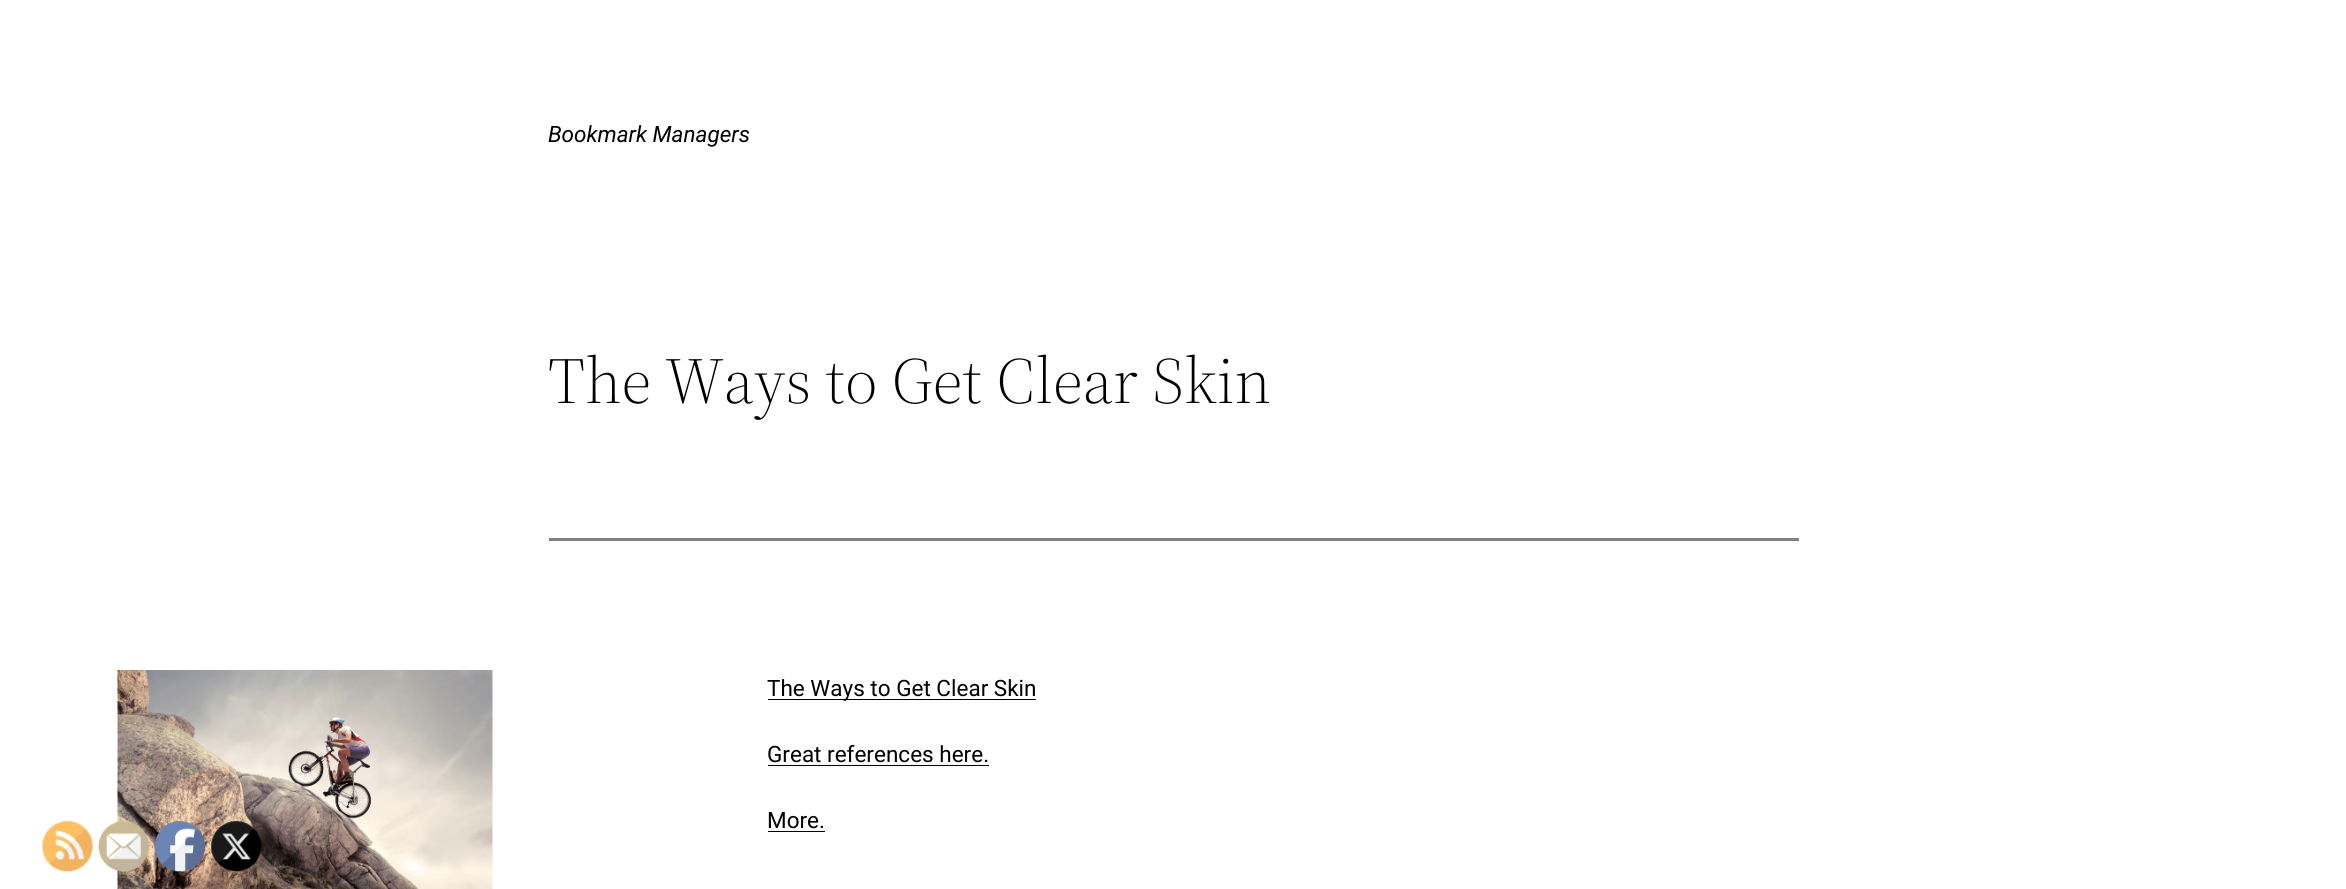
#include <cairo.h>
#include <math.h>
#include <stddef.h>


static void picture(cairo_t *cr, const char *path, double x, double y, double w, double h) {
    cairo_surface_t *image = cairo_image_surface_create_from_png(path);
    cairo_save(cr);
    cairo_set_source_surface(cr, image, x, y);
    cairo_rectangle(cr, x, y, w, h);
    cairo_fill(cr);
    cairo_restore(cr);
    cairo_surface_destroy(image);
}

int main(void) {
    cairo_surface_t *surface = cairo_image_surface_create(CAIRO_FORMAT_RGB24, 2346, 889);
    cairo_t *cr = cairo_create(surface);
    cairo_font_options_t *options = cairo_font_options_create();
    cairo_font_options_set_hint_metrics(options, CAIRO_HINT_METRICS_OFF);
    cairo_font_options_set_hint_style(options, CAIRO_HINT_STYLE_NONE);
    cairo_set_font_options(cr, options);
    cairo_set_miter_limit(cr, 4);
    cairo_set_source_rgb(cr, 1, 1, 1);
    cairo_paint(cr);
    cairo_select_font_face(cr, "Roboto", CAIRO_FONT_SLANT_ITALIC, CAIRO_FONT_WEIGHT_NORMAL);
    cairo_set_font_size(cr, 22.5);
    cairo_set_source_rgb(cr, 0, 0, 0);
    cairo_move_to(cr, 548, 142);
    cairo_show_text(cr, "Bookmark Managers");
    cairo_select_font_face(cr, "Source Serif 4 Light", CAIRO_FONT_SLANT_NORMAL, CAIRO_FONT_WEIGHT_NORMAL);
    cairo_set_font_size(cr, 65);
    cairo_move_to(cr, 548, 403);
    cairo_show_text(cr, "The Ways to Get Clear Skin");
    cairo_set_source_rgb(cr, 0.502, 0.502, 0.502);
    cairo_rectangle(cr, 549, 538, 1250, 3);
    cairo_fill(cr);
    picture(cr, "img1.png", 117, 670, 376, 219);
    cairo_set_source_rgb(cr, 0, 0, 0);
    cairo_rectangle(cr, 768, 699, 268, 1);
    cairo_fill(cr);
    cairo_select_font_face(cr, "Roboto", CAIRO_FONT_SLANT_NORMAL, CAIRO_FONT_WEIGHT_NORMAL);
    cairo_set_font_size(cr, 22.5);
    cairo_move_to(cr, 767, 696);
    cairo_show_text(cr, "The Ways to Get Clear Skin");
    cairo_move_to(cr, 767, 762);
    cairo_show_text(cr, "Great references here.");
    cairo_rectangle(cr, 768, 765, 221, 1);
    cairo_fill(cr);
    cairo_move_to(cr, 767, 828);
    cairo_show_text(cr, "More.");
    cairo_rectangle(cr, 768, 831, 57, 1);
    cairo_fill(cr);
    picture(cr, "img2.png", 42, 821, 51, 51);
    picture(cr, "img3.png", 98, 821, 51, 51);
    picture(cr, "img4.png", 155, 821, 50, 51);
    picture(cr, "img5.png", 211, 821, 51, 51);
    cairo_surface_write_to_png(surface, "page.png");
    cairo_font_options_destroy(options);
    cairo_destroy(cr);
    cairo_surface_destroy(surface);
    return 0;
}
